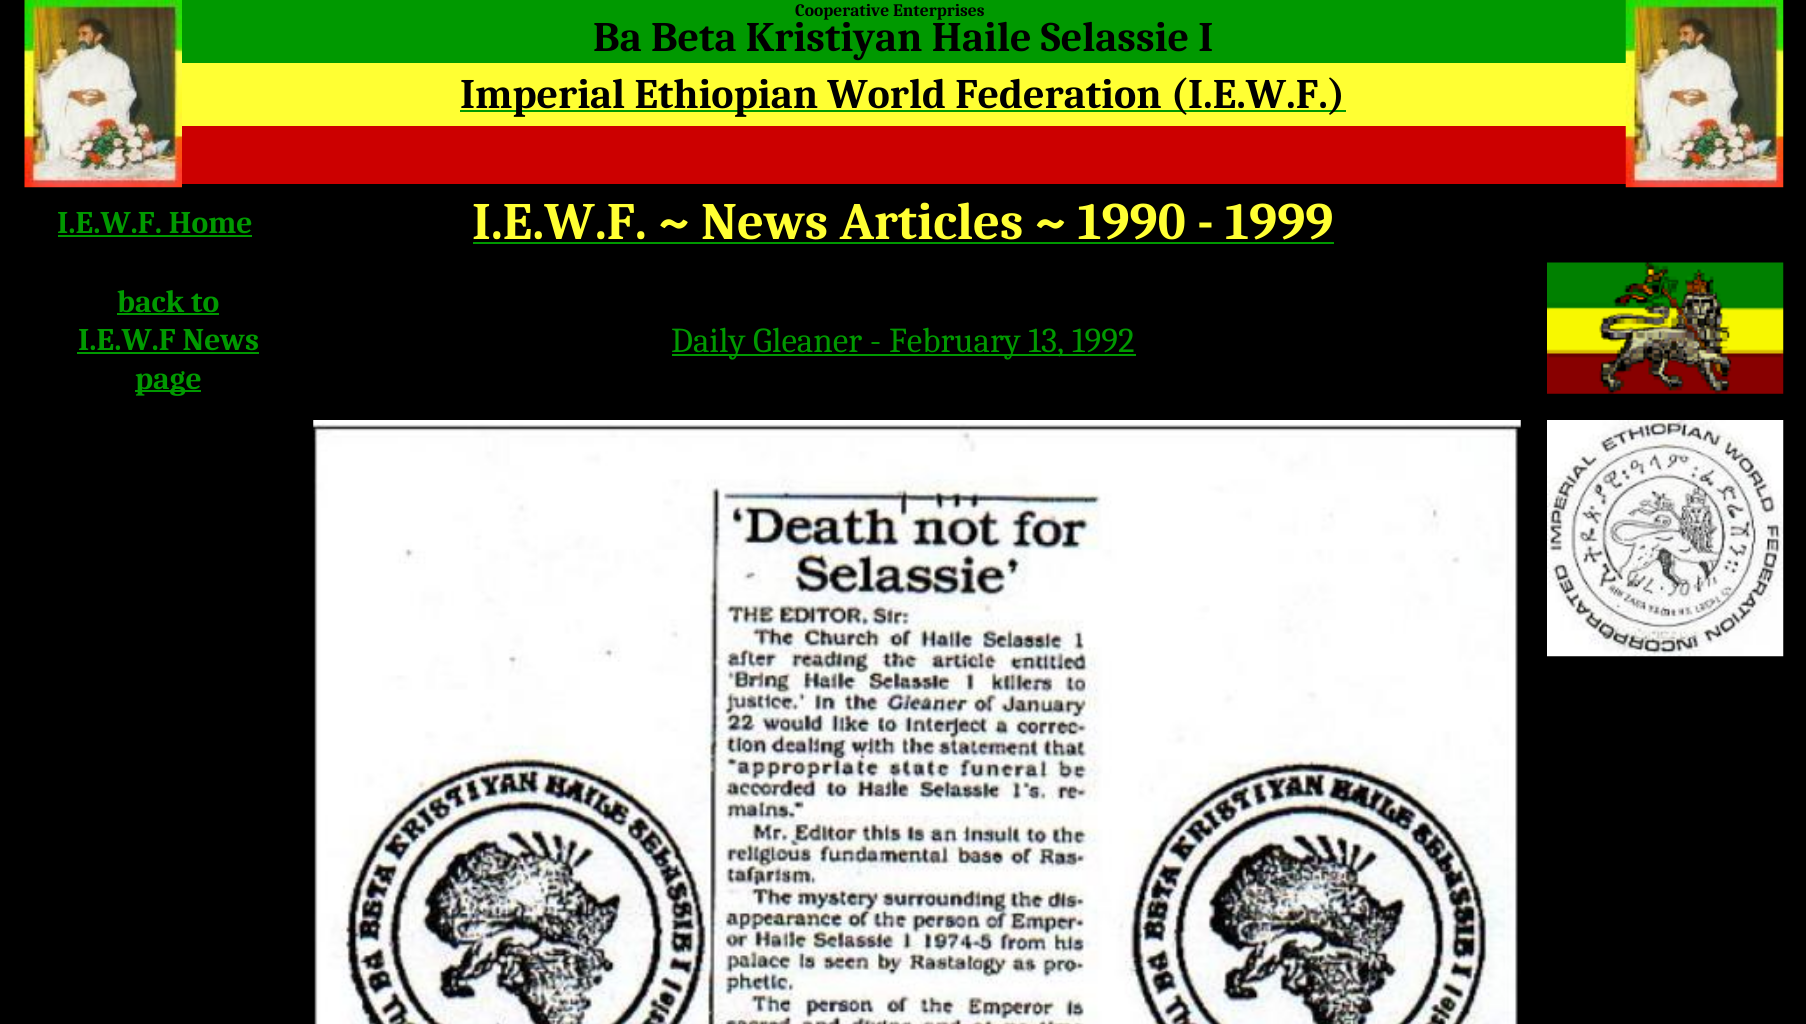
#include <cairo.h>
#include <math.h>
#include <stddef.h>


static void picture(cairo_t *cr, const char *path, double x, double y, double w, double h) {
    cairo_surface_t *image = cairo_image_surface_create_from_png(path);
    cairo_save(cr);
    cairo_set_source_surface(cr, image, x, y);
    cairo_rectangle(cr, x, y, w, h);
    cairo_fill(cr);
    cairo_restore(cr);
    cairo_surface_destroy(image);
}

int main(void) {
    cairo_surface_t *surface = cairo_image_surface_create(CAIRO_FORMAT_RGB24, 1806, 1024);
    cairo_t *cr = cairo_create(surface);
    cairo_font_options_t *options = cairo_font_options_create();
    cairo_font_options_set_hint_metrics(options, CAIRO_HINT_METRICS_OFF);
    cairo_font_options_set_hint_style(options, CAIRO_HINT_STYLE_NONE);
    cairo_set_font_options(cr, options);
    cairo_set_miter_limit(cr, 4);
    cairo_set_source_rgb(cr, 0, 0, 0);
    cairo_paint(cr);
    picture(cr, "img1.png", 24, 0, 158, 188);
    cairo_set_source_rgb(cr, 0, 0.6, 0);
    cairo_rectangle(cr, 182, 0, 1444, 63);
    cairo_fill(cr);
    cairo_select_font_face(cr, "Caladea", CAIRO_FONT_SLANT_NORMAL, CAIRO_FONT_WEIGHT_BOLD);
    cairo_set_font_size(cr, 17.5);
    cairo_set_source_rgb(cr, 0, 0, 0);
    cairo_move_to(cr, 795, 16);
    cairo_show_text(cr, "Cooperative Enterprises");
    cairo_set_source_rgb(cr, 1, 1, 0.2);
    cairo_rectangle(cr, 182, 63, 1444, 63);
    cairo_fill(cr);
    cairo_set_source_rgb(cr, 0.8, 0, 0);
    cairo_rectangle(cr, 182, 126, 1444, 58);
    cairo_fill(cr);
    picture(cr, "img2.png", 1625, 0, 159, 188);
    cairo_set_font_size(cr, 42);
    cairo_set_source_rgb(cr, 0, 0, 0);
    cairo_move_to(cr, 593, 51);
    cairo_show_text(cr, "Ba Beta Kristiyan Haile Selassie I");
    cairo_set_source_rgb(cr, 0, 0.6, 0);
    cairo_rectangle(cr, 460, 110, 886, 2);
    cairo_fill(cr);
    cairo_set_source_rgb(cr, 0, 0, 0);
    cairo_move_to(cr, 460, 108);
    cairo_show_text(cr, "Imperial Ethiopian World Federation (I.E.W.F.)");
    cairo_set_font_size(cr, 31.5);
    cairo_set_source_rgb(cr, 0, 0.6, 0);
    cairo_move_to(cr, 57, 233);
    cairo_show_text(cr, "I.E.W.F. Home");
    cairo_rectangle(cr, 58, 235, 194, 2);
    cairo_fill(cr);
    cairo_set_font_size(cr, 52.5);
    cairo_set_source_rgb(cr, 1, 1, 0.2);
    cairo_move_to(cr, 472, 239);
    cairo_show_text(cr, "I.E.W.F. ~ News Articles ~ 1990 - 1999");
    cairo_set_source_rgb(cr, 0, 0.6, 0);
    cairo_rectangle(cr, 473, 242, 861, 2);
    cairo_fill(cr);
    cairo_set_font_size(cr, 31.5);
    cairo_move_to(cr, 117, 312);
    cairo_show_text(cr, "back to");
    cairo_rectangle(cr, 117, 313, 102, 2);
    cairo_fill(cr);
    cairo_move_to(cr, 78, 350);
    cairo_show_text(cr, "I.E.W.F News");
    cairo_rectangle(cr, 77, 352, 182, 2);
    cairo_fill(cr);
    cairo_rectangle(cr, 135, 390, 66, 2);
    cairo_fill(cr);
    cairo_move_to(cr, 135, 389);
    cairo_show_text(cr, "page");
    cairo_rectangle(cr, 672, 354, 348, 2);
    cairo_fill(cr);
    cairo_select_font_face(cr, "Caladea", CAIRO_FONT_SLANT_NORMAL, CAIRO_FONT_WEIGHT_NORMAL);
    cairo_set_font_size(cr, 35);
    cairo_move_to(cr, 671, 352);
    cairo_show_text(cr, "Daily Gleaner - February 13");
    cairo_rectangle(cr, 1020, 354, 116, 2);
    cairo_fill(cr);
    cairo_move_to(cr, 1057, 352);
    cairo_show_text(cr, ", 1992");
    picture(cr, "img3.png", 1547, 262, 237, 132);
    picture(cr, "img4.png", 313, 420, 1208, 604);
    picture(cr, "img5.png", 1547, 420, 237, 237);
    cairo_surface_write_to_png(surface, "page.png");
    cairo_font_options_destroy(options);
    cairo_destroy(cr);
    cairo_surface_destroy(surface);
    return 0;
}
